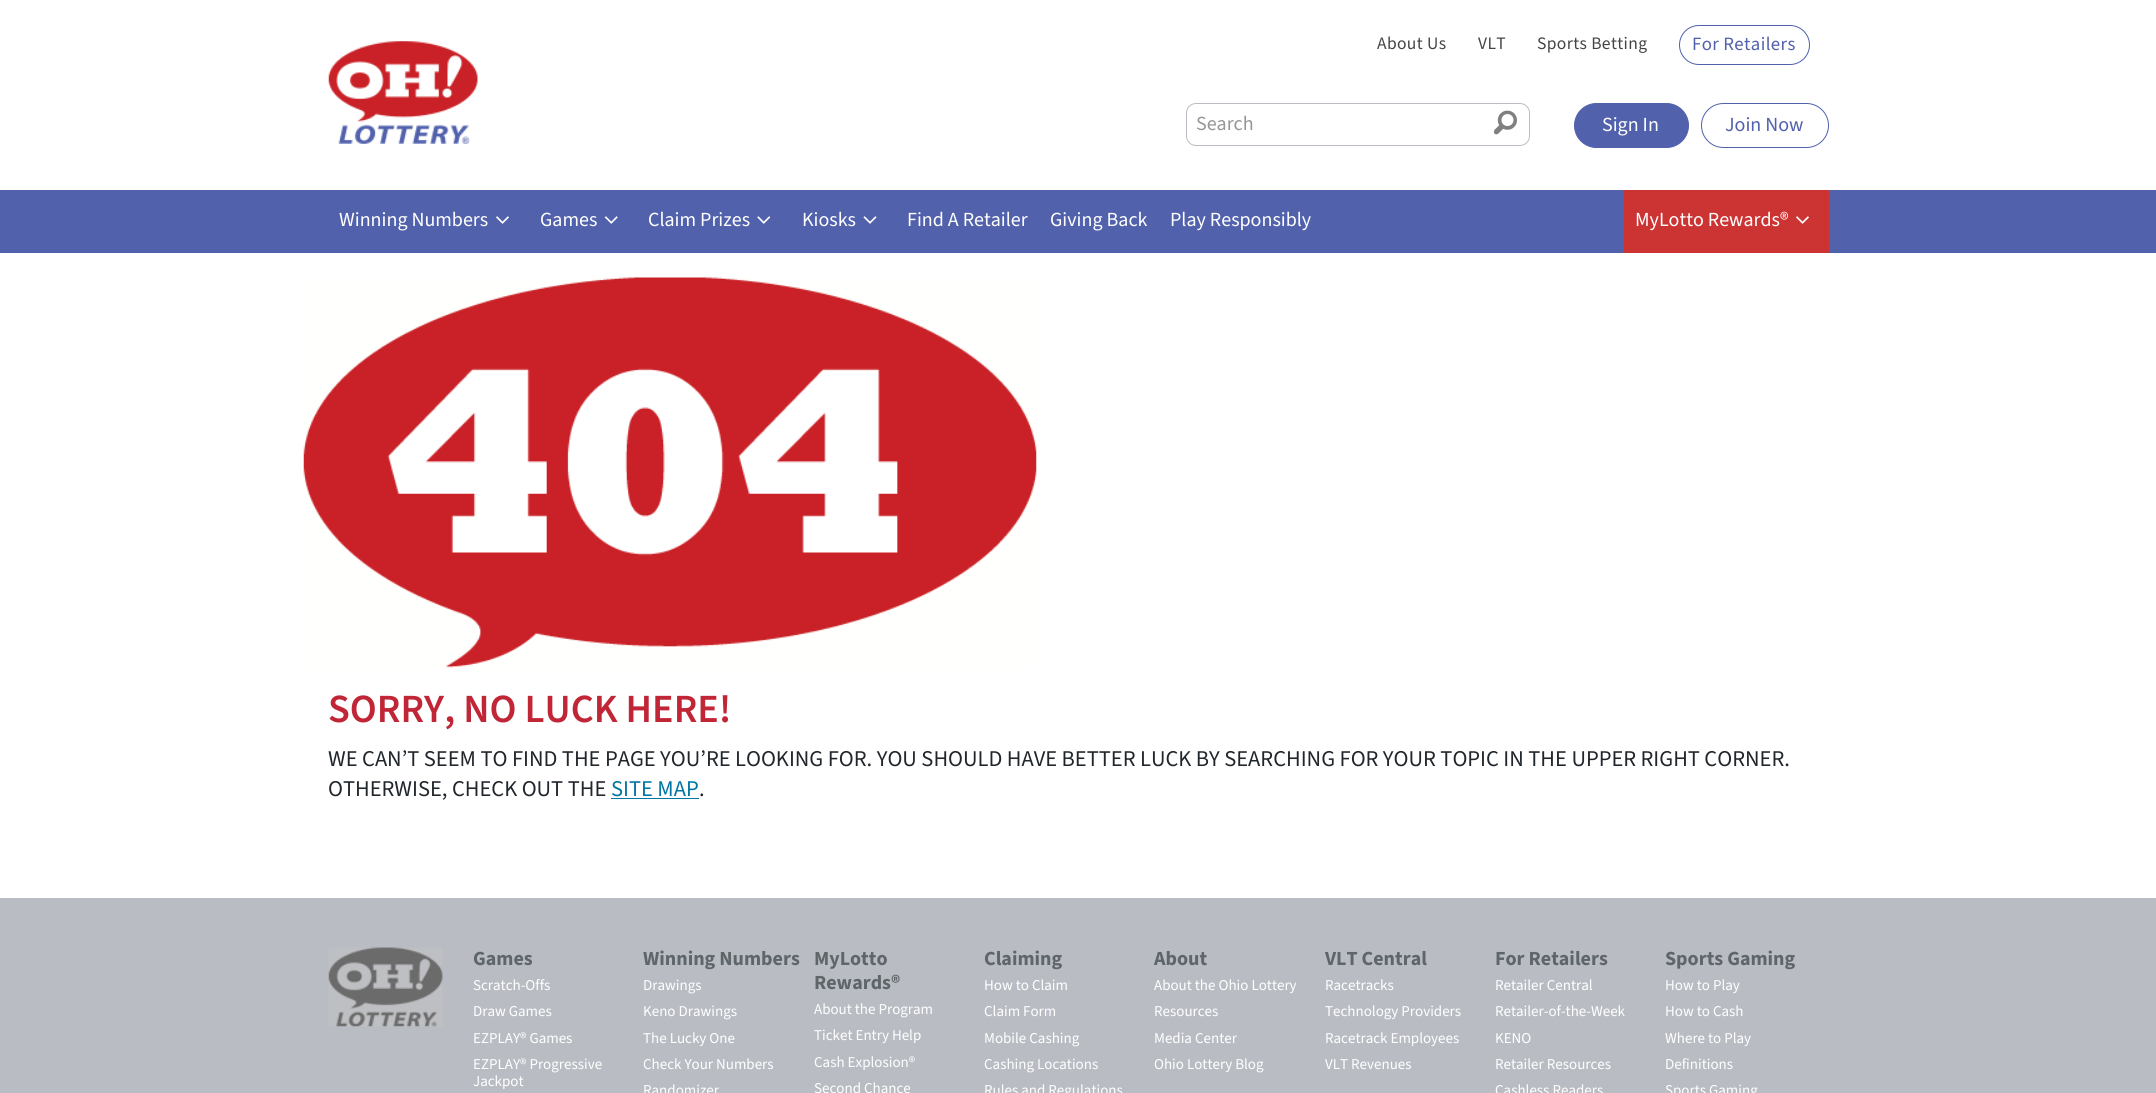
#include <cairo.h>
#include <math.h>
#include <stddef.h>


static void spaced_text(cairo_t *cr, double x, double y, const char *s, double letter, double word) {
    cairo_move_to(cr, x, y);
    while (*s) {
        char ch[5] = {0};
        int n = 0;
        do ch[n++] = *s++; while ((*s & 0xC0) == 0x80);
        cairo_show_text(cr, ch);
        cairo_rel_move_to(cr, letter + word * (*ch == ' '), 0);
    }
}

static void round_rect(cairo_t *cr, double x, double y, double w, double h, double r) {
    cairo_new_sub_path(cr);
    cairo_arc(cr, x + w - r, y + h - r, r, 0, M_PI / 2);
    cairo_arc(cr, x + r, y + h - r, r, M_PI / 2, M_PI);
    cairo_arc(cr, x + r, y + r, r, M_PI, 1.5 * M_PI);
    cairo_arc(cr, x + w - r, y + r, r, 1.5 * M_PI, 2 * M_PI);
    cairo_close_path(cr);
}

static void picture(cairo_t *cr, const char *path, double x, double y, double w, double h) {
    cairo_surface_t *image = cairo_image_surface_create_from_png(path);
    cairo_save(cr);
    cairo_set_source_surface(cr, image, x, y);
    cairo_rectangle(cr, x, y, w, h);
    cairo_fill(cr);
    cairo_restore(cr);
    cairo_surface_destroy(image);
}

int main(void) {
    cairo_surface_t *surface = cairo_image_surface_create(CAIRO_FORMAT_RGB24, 2156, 1093);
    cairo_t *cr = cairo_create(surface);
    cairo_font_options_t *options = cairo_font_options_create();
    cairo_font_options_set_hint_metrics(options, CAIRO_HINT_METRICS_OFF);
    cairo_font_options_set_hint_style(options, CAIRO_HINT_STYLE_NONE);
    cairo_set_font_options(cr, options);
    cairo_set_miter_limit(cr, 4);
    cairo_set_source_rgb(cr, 1, 1, 1);
    cairo_paint(cr);
    picture(cr, "img1.png", 328, 41, 150, 103);
    cairo_select_font_face(cr, "Source Sans 3", CAIRO_FONT_SLANT_NORMAL, CAIRO_FONT_WEIGHT_NORMAL);
    cairo_set_font_size(cr, 17.5);
    cairo_set_source_rgb(cr, 0.267, 0.267, 0.267);
    spaced_text(cr, 1377, 49, "About Us", 0.4, 0);
    spaced_text(cr, 1478, 49, "VLT", 0.4, 0);
    spaced_text(cr, 1537, 49, "Sports Betting", 0.4, 0);
    round_rect(cr, 1679.5, 25.5, 130, 39, 19.5);
    cairo_set_source_rgb(cr, 0.318, 0.38, 0.675);
    cairo_set_line_width(cr, 1);
    cairo_stroke(cr);
    cairo_set_font_size(cr, 18.75);
    spaced_text(cr, 1692, 50, "For Retailers", 0.4, 0);
    round_rect(cr, 1186.5, 103.5, 343, 42, 9.5);
    cairo_set_source_rgb(cr, 0.725, 0.741, 0.765);
    cairo_stroke(cr);
    cairo_set_font_size(cr, 20);
    cairo_set_source_rgb(cr, 0.588, 0.588, 0.588);
    cairo_move_to(cr, 1196, 130);
    cairo_show_text(cr, "Search");
    picture(cr, "img2.png", 1494, 110, 23, 25);
    cairo_set_source_rgb(cr, 0.318, 0.38, 0.675);
    round_rect(cr, 1574.5, 103.5, 114, 44, 22);
    cairo_fill_preserve(cr);
    cairo_stroke(cr);
    cairo_set_source_rgb(cr, 1, 1, 1);
    cairo_move_to(cr, 1602, 131);
    cairo_show_text(cr, "Sign In");
    round_rect(cr, 1701.5, 103.5, 127, 44, 22);
    cairo_set_source_rgb(cr, 0.318, 0.38, 0.675);
    cairo_stroke(cr);
    cairo_move_to(cr, 1725, 131);
    cairo_show_text(cr, "Join Now");
    cairo_rectangle(cr, 0, 190, 2156, 63);
    cairo_fill(cr);
    cairo_set_source_rgb(cr, 1, 1, 1);
    cairo_move_to(cr, 339, 226);
    cairo_show_text(cr, "Winning Numbers");
    picture(cr, "img3.png", 496, 216, 13, 8);
    cairo_move_to(cr, 540, 226);
    cairo_show_text(cr, "Games");
    picture(cr, "img4.png", 604, 216, 14, 8);
    cairo_move_to(cr, 648, 226);
    cairo_show_text(cr, "Claim Prizes");
    picture(cr, "img5.png", 757, 216, 14, 8);
    cairo_move_to(cr, 802, 226);
    cairo_show_text(cr, "Kiosks");
    picture(cr, "img6.png", 863, 216, 14, 8);
    cairo_move_to(cr, 907, 226);
    cairo_show_text(cr, "Find A Retailer");
    cairo_move_to(cr, 1050, 226);
    cairo_show_text(cr, "Giving Back");
    cairo_move_to(cr, 1170, 226);
    cairo_show_text(cr, "Play Responsibly");
    cairo_set_source_rgb(cr, 0.8, 0.2, 0.2);
    cairo_rectangle(cr, 1624, 190, 205, 63);
    cairo_fill(cr);
    cairo_set_source_rgb(cr, 1, 1, 1);
    cairo_move_to(cr, 1635, 226);
    cairo_show_text(cr, "MyLotto Rewards®");
    picture(cr, "img7.png", 1796, 216, 13, 8);
    picture(cr, "img8.png", 303, 277, 734, 391);
    cairo_select_font_face(cr, "Source Sans 3 SemiBold", CAIRO_FONT_SLANT_NORMAL, CAIRO_FONT_WEIGHT_NORMAL);
    cairo_set_font_size(cr, 40);
    cairo_set_source_rgb(cr, 0.757, 0.149, 0.216);
    cairo_move_to(cr, 328, 722);
    cairo_show_text(cr, "SORRY, NO LUCK HERE!");
    cairo_select_font_face(cr, "Source Sans 3", CAIRO_FONT_SLANT_NORMAL, CAIRO_FONT_WEIGHT_NORMAL);
    cairo_set_font_size(cr, 22.5);
    cairo_set_source_rgb(cr, 0.125, 0.149, 0.169);
    cairo_move_to(cr, 328, 766);
    cairo_show_text(cr, "WE CAN’T SEEM TO FIND THE PAGE YOU’RE LOOKING FOR. YOU SHOULD HAVE BETTER LUCK BY SEARCHING FOR YOUR TOPIC IN THE UPPER RIGHT CORNER.");
    cairo_move_to(cr, 328, 796);
    cairo_show_text(cr, "OTHERWISE, CHECK OUT THE");
    cairo_set_source_rgb(cr, 0.004, 0.463, 0.639);
    cairo_move_to(cr, 611, 796);
    cairo_show_text(cr, "SITE MAP");
    cairo_rectangle(cr, 611, 798, 88, 1);
    cairo_fill(cr);
    cairo_set_source_rgb(cr, 0.125, 0.149, 0.169);
    cairo_move_to(cr, 699, 796);
    cairo_show_text(cr, ".");
    cairo_set_source_rgb(cr, 0.725, 0.741, 0.765);
    cairo_rectangle(cr, 0, 898, 2156, 195);
    cairo_fill(cr);
    picture(cr, "img9.png", 328, 947, 115, 80);
    cairo_select_font_face(cr, "Source Sans 3", CAIRO_FONT_SLANT_NORMAL, CAIRO_FONT_WEIGHT_BOLD);
    cairo_set_font_size(cr, 20);
    cairo_set_source_rgb(cr, 0.373, 0.4, 0.416);
    cairo_move_to(cr, 473, 965);
    cairo_show_text(cr, "Games");
    cairo_select_font_face(cr, "Source Sans 3", CAIRO_FONT_SLANT_NORMAL, CAIRO_FONT_WEIGHT_NORMAL);
    cairo_set_font_size(cr, 15);
    cairo_set_source_rgb(cr, 1, 1, 1);
    cairo_move_to(cr, 473, 990);
    cairo_show_text(cr, "Scratch-Offs");
    cairo_move_to(cr, 473, 1016);
    cairo_show_text(cr, "Draw Games");
    cairo_move_to(cr, 473, 1043);
    cairo_show_text(cr, "EZPLAY® Games");
    cairo_move_to(cr, 473, 1069);
    cairo_show_text(cr, "EZPLAY® Progressive");
    cairo_move_to(cr, 473, 1086);
    cairo_show_text(cr, "Jackpot");
    cairo_select_font_face(cr, "Source Sans 3", CAIRO_FONT_SLANT_NORMAL, CAIRO_FONT_WEIGHT_BOLD);
    cairo_set_font_size(cr, 20);
    cairo_set_source_rgb(cr, 0.373, 0.4, 0.416);
    cairo_move_to(cr, 643, 965);
    cairo_show_text(cr, "Winning Numbers");
    cairo_select_font_face(cr, "Source Sans 3", CAIRO_FONT_SLANT_NORMAL, CAIRO_FONT_WEIGHT_NORMAL);
    cairo_set_font_size(cr, 15);
    cairo_set_source_rgb(cr, 1, 1, 1);
    cairo_move_to(cr, 643, 990);
    cairo_show_text(cr, "Drawings");
    cairo_move_to(cr, 643, 1016);
    cairo_show_text(cr, "Keno Drawings");
    cairo_move_to(cr, 643, 1043);
    cairo_show_text(cr, "The Lucky One");
    cairo_move_to(cr, 643, 1069);
    cairo_show_text(cr, "Check Your Numbers");
    cairo_move_to(cr, 643, 1095);
    cairo_show_text(cr, "Randomizer");
    cairo_select_font_face(cr, "Source Sans 3", CAIRO_FONT_SLANT_NORMAL, CAIRO_FONT_WEIGHT_BOLD);
    cairo_set_font_size(cr, 20);
    cairo_set_source_rgb(cr, 0.373, 0.4, 0.416);
    cairo_move_to(cr, 814, 965);
    cairo_show_text(cr, "MyLotto");
    cairo_move_to(cr, 814, 989);
    cairo_show_text(cr, "Rewards®");
    cairo_select_font_face(cr, "Source Sans 3", CAIRO_FONT_SLANT_NORMAL, CAIRO_FONT_WEIGHT_NORMAL);
    cairo_set_font_size(cr, 15);
    cairo_set_source_rgb(cr, 1, 1, 1);
    cairo_move_to(cr, 814, 1014);
    cairo_show_text(cr, "About the Program");
    cairo_move_to(cr, 814, 1040);
    cairo_show_text(cr, "Ticket Entry Help");
    cairo_move_to(cr, 814, 1067);
    cairo_show_text(cr, "Cash Explosion®");
    cairo_move_to(cr, 814, 1093);
    cairo_show_text(cr, "Second Chance");
    cairo_select_font_face(cr, "Source Sans 3", CAIRO_FONT_SLANT_NORMAL, CAIRO_FONT_WEIGHT_BOLD);
    cairo_set_font_size(cr, 20);
    cairo_set_source_rgb(cr, 0.373, 0.4, 0.416);
    cairo_move_to(cr, 984, 965);
    cairo_show_text(cr, "Claiming");
    cairo_select_font_face(cr, "Source Sans 3", CAIRO_FONT_SLANT_NORMAL, CAIRO_FONT_WEIGHT_NORMAL);
    cairo_set_font_size(cr, 15);
    cairo_set_source_rgb(cr, 1, 1, 1);
    cairo_move_to(cr, 984, 990);
    cairo_show_text(cr, "How to Claim");
    cairo_move_to(cr, 984, 1016);
    cairo_show_text(cr, "Claim Form");
    cairo_move_to(cr, 984, 1043);
    cairo_show_text(cr, "Mobile Cashing");
    cairo_move_to(cr, 984, 1069);
    cairo_show_text(cr, "Cashing Locations");
    cairo_move_to(cr, 984, 1095);
    cairo_show_text(cr, "Rules and Regulations");
    cairo_select_font_face(cr, "Source Sans 3", CAIRO_FONT_SLANT_NORMAL, CAIRO_FONT_WEIGHT_BOLD);
    cairo_set_font_size(cr, 20);
    cairo_set_source_rgb(cr, 0.373, 0.4, 0.416);
    cairo_move_to(cr, 1154, 965);
    cairo_show_text(cr, "About");
    cairo_select_font_face(cr, "Source Sans 3", CAIRO_FONT_SLANT_NORMAL, CAIRO_FONT_WEIGHT_NORMAL);
    cairo_set_font_size(cr, 15);
    cairo_set_source_rgb(cr, 1, 1, 1);
    cairo_move_to(cr, 1154, 990);
    cairo_show_text(cr, "About the Ohio Lottery");
    cairo_move_to(cr, 1154, 1016);
    cairo_show_text(cr, "Resources");
    cairo_move_to(cr, 1154, 1043);
    cairo_show_text(cr, "Media Center");
    cairo_move_to(cr, 1154, 1069);
    cairo_show_text(cr, "Ohio Lottery Blog");
    cairo_select_font_face(cr, "Source Sans 3", CAIRO_FONT_SLANT_NORMAL, CAIRO_FONT_WEIGHT_BOLD);
    cairo_set_font_size(cr, 20);
    cairo_set_source_rgb(cr, 0.373, 0.4, 0.416);
    cairo_move_to(cr, 1325, 965);
    cairo_show_text(cr, "VLT Central");
    cairo_select_font_face(cr, "Source Sans 3", CAIRO_FONT_SLANT_NORMAL, CAIRO_FONT_WEIGHT_NORMAL);
    cairo_set_font_size(cr, 15);
    cairo_set_source_rgb(cr, 1, 1, 1);
    cairo_move_to(cr, 1325, 990);
    cairo_show_text(cr, "Racetracks");
    cairo_move_to(cr, 1325, 1016);
    cairo_show_text(cr, "Technology Providers");
    cairo_move_to(cr, 1325, 1043);
    cairo_show_text(cr, "Racetrack Employees");
    cairo_move_to(cr, 1325, 1069);
    cairo_show_text(cr, "VLT Revenues");
    cairo_select_font_face(cr, "Source Sans 3", CAIRO_FONT_SLANT_NORMAL, CAIRO_FONT_WEIGHT_BOLD);
    cairo_set_font_size(cr, 20);
    cairo_set_source_rgb(cr, 0.373, 0.4, 0.416);
    cairo_move_to(cr, 1495, 965);
    cairo_show_text(cr, "For Retailers");
    cairo_select_font_face(cr, "Source Sans 3", CAIRO_FONT_SLANT_NORMAL, CAIRO_FONT_WEIGHT_NORMAL);
    cairo_set_font_size(cr, 15);
    cairo_set_source_rgb(cr, 1, 1, 1);
    cairo_move_to(cr, 1495, 990);
    cairo_show_text(cr, "Retailer Central");
    cairo_move_to(cr, 1495, 1016);
    cairo_show_text(cr, "Retailer-of-the-Week");
    cairo_move_to(cr, 1495, 1043);
    cairo_show_text(cr, "KENO");
    cairo_move_to(cr, 1495, 1069);
    cairo_show_text(cr, "Retailer Resources");
    cairo_move_to(cr, 1495, 1095);
    cairo_show_text(cr, "Cashless Readers");
    cairo_select_font_face(cr, "Source Sans 3", CAIRO_FONT_SLANT_NORMAL, CAIRO_FONT_WEIGHT_BOLD);
    cairo_set_font_size(cr, 20);
    cairo_set_source_rgb(cr, 0.373, 0.4, 0.416);
    cairo_move_to(cr, 1665, 965);
    cairo_show_text(cr, "Sports Gaming");
    cairo_select_font_face(cr, "Source Sans 3", CAIRO_FONT_SLANT_NORMAL, CAIRO_FONT_WEIGHT_NORMAL);
    cairo_set_font_size(cr, 15);
    cairo_set_source_rgb(cr, 1, 1, 1);
    cairo_move_to(cr, 1665, 990);
    cairo_show_text(cr, "How to Play");
    cairo_move_to(cr, 1665, 1016);
    cairo_show_text(cr, "How to Cash");
    cairo_move_to(cr, 1665, 1043);
    cairo_show_text(cr, "Where to Play");
    cairo_move_to(cr, 1665, 1069);
    cairo_show_text(cr, "Definitions");
    cairo_move_to(cr, 1665, 1095);
    cairo_show_text(cr, "Sports Gaming");
    cairo_surface_write_to_png(surface, "page.png");
    cairo_font_options_destroy(options);
    cairo_destroy(cr);
    cairo_surface_destroy(surface);
    return 0;
}
